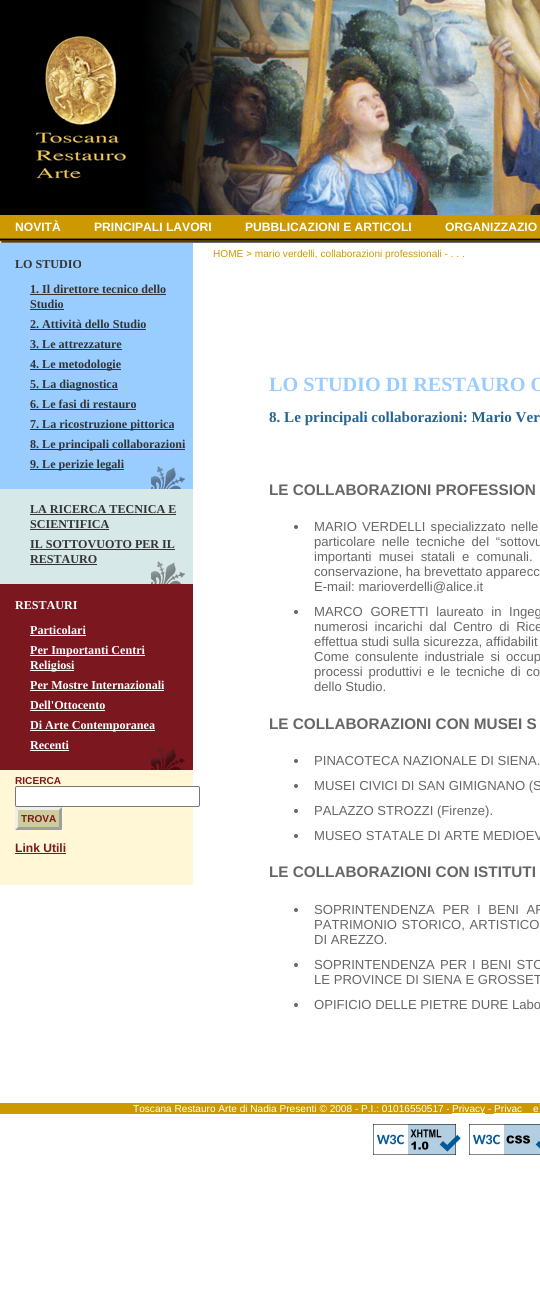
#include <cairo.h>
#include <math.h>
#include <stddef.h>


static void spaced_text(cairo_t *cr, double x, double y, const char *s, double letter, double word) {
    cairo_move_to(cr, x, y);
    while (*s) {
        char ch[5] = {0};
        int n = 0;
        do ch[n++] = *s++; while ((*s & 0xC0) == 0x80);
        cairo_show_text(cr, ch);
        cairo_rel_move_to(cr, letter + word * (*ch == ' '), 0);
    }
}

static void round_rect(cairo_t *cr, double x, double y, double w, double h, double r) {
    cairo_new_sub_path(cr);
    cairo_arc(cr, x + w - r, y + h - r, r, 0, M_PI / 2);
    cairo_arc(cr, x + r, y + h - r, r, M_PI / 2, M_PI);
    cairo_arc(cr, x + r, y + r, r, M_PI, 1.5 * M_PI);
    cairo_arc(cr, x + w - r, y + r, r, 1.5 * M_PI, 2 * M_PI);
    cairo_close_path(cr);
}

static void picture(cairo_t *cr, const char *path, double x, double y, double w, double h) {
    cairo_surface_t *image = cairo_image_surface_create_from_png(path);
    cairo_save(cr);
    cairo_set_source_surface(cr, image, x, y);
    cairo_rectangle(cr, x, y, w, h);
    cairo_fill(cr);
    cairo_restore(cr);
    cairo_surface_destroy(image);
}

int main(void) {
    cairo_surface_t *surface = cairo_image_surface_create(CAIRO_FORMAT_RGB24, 540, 1308);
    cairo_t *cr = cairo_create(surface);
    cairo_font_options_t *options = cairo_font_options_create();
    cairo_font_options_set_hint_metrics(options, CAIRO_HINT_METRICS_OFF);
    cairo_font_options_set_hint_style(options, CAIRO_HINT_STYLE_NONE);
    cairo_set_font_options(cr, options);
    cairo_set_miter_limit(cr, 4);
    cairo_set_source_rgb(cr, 1, 1, 1);
    cairo_paint(cr);
    picture(cr, "img1.png", 0, 0, 540, 215);
    cairo_set_source_rgb(cr, 0.8, 0.6, 0);
    cairo_rectangle(cr, 0, 215, 540, 23);
    cairo_fill(cr);
    picture(cr, "img2.png", 0, 238, 540, 5);
    cairo_select_font_face(cr, "Liberation Sans", CAIRO_FONT_SLANT_NORMAL, CAIRO_FONT_WEIGHT_BOLD);
    cairo_set_font_size(cr, 12.1);
    cairo_set_source_rgb(cr, 1, 1, 1);
    cairo_move_to(cr, 15, 231);
    cairo_show_text(cr, "NOVITÀ");
    cairo_move_to(cr, 94, 231);
    cairo_show_text(cr, "PRINCIPALI LAVORI");
    cairo_move_to(cr, 245, 231);
    cairo_show_text(cr, "PUBBLICAZIONI E ARTICOLI");
    cairo_move_to(cr, 445, 231);
    cairo_show_text(cr, "ORGANIZZAZIO");
    cairo_set_source_rgb(cr, 0.6, 0.8, 1);
    cairo_rectangle(cr, 0, 243, 193, 246);
    cairo_fill(cr);
    picture(cr, "img3.png", 151, 466, 38, 23);
    cairo_select_font_face(cr, "Liberation Serif", CAIRO_FONT_SLANT_NORMAL, CAIRO_FONT_WEIGHT_BOLD);
    cairo_set_source_rgb(cr, 0.2, 0.2, 0.2);
    cairo_move_to(cr, 15, 268);
    cairo_show_text(cr, "LO STUDIO");
    cairo_move_to(cr, 30, 293);
    cairo_show_text(cr, "1. Il direttore tecnico dello");
    cairo_rectangle(cr, 30, 294, 136, 1);
    cairo_fill(cr);
    cairo_move_to(cr, 30, 308);
    cairo_show_text(cr, "Studio");
    cairo_rectangle(cr, 30, 309, 34, 1);
    cairo_fill(cr);
    cairo_move_to(cr, 30, 328);
    cairo_show_text(cr, "2. Attività dello Studio");
    cairo_rectangle(cr, 30, 329, 116, 1);
    cairo_fill(cr);
    cairo_move_to(cr, 30, 348);
    cairo_show_text(cr, "3. Le attrezzature");
    cairo_rectangle(cr, 30, 349, 92, 1);
    cairo_fill(cr);
    cairo_rectangle(cr, 30, 369, 91, 1);
    cairo_fill(cr);
    cairo_move_to(cr, 30, 368);
    cairo_show_text(cr, "4. Le metodologie");
    cairo_rectangle(cr, 30, 389, 88, 1);
    cairo_fill(cr);
    cairo_move_to(cr, 30, 388);
    cairo_show_text(cr, "5. La diagnostica");
    cairo_move_to(cr, 30, 408);
    cairo_show_text(cr, "6. Le fasi di restauro");
    cairo_rectangle(cr, 30, 409, 106, 1);
    cairo_fill(cr);
    cairo_rectangle(cr, 30, 429, 144, 1);
    cairo_fill(cr);
    cairo_move_to(cr, 30, 428);
    cairo_show_text(cr, "7. La ricostruzione pittorica");
    cairo_rectangle(cr, 30, 449, 155, 1);
    cairo_fill(cr);
    cairo_move_to(cr, 30, 448);
    cairo_show_text(cr, "8. Le principali collaborazioni");
    cairo_rectangle(cr, 30, 469, 94, 1);
    cairo_fill(cr);
    cairo_move_to(cr, 30, 468);
    cairo_show_text(cr, "9. Le perizie legali");
    cairo_set_source_rgb(cr, 0.843, 0.91, 0.91);
    cairo_rectangle(cr, 0, 489, 193, 95);
    cairo_fill(cr);
    picture(cr, "img4.png", 151, 561, 34, 23);
    cairo_set_source_rgb(cr, 0.2, 0.2, 0.2);
    cairo_move_to(cr, 30, 513);
    cairo_show_text(cr, "LA RICERCA TECNICA E");
    cairo_rectangle(cr, 30, 514, 146, 1);
    cairo_fill(cr);
    cairo_move_to(cr, 30, 528);
    cairo_show_text(cr, "SCIENTIFICA");
    cairo_rectangle(cr, 30, 529, 79, 1);
    cairo_fill(cr);
    cairo_move_to(cr, 30, 548);
    cairo_show_text(cr, "IL SOTTOVUOTO PER IL");
    cairo_rectangle(cr, 30, 549, 145, 1);
    cairo_fill(cr);
    cairo_move_to(cr, 30, 563);
    cairo_show_text(cr, "RESTAURO");
    cairo_rectangle(cr, 30, 564, 67, 1);
    cairo_fill(cr);
    cairo_set_source_rgb(cr, 0.482, 0.09, 0.118);
    cairo_rectangle(cr, 0, 584, 193, 186);
    cairo_fill(cr);
    picture(cr, "img5.png", 151, 747, 35, 23);
    cairo_set_source_rgb(cr, 1, 1, 1);
    cairo_move_to(cr, 15, 609);
    cairo_show_text(cr, "RESTAURI");
    cairo_move_to(cr, 30, 634);
    cairo_show_text(cr, "Particolari");
    cairo_rectangle(cr, 30, 635, 56, 1);
    cairo_fill(cr);
    cairo_rectangle(cr, 30, 655, 115, 1);
    cairo_fill(cr);
    cairo_move_to(cr, 30, 654);
    cairo_show_text(cr, "Per Importanti Centri");
    cairo_rectangle(cr, 30, 670, 44, 1);
    cairo_fill(cr);
    cairo_move_to(cr, 30, 669);
    cairo_show_text(cr, "Religiosi");
    cairo_move_to(cr, 30, 689);
    cairo_show_text(cr, "Per Mostre Internazionali");
    cairo_rectangle(cr, 30, 690, 134, 1);
    cairo_fill(cr);
    cairo_move_to(cr, 30, 709);
    cairo_show_text(cr, "Dell'Ottocento");
    cairo_rectangle(cr, 30, 710, 75, 1);
    cairo_fill(cr);
    cairo_rectangle(cr, 30, 730, 125, 1);
    cairo_fill(cr);
    cairo_move_to(cr, 30, 729);
    cairo_show_text(cr, "Di Arte Contemporanea");
    cairo_move_to(cr, 30, 749);
    cairo_show_text(cr, "Recenti");
    cairo_rectangle(cr, 30, 750, 39, 1);
    cairo_fill(cr);
    cairo_set_source_rgb(cr, 1, 0.965, 0.835);
    cairo_rectangle(cr, 0, 770, 193, 115);
    cairo_fill(cr);
    cairo_select_font_face(cr, "Liberation Sans", CAIRO_FONT_SLANT_NORMAL, CAIRO_FONT_WEIGHT_BOLD);
    cairo_set_font_size(cr, 10.1);
    cairo_set_source_rgb(cr, 0.482, 0.09, 0.118);
    cairo_move_to(cr, 15, 784);
    cairo_show_text(cr, "RICERCA");
    cairo_set_source_rgb(cr, 1, 1, 1);
    round_rect(cr, 15.5, 786.5, 184, 20, 1.5);
    cairo_fill_preserve(cr);
    cairo_set_source_rgb(cr, 0.463, 0.463, 0.463);
    cairo_set_line_width(cr, 1);
    cairo_stroke(cr);
    cairo_set_source_rgb(cr, 0.804, 0.804, 0.608);
    cairo_rectangle(cr, 15, 807, 47, 23);
    cairo_fill(cr);
    cairo_set_source_rgb(cr, 0.933, 0.933, 0.933);
    cairo_new_path(cr);
    cairo_move_to(cr, 15, 807);
    cairo_line_to(cr, 62, 807);
    cairo_line_to(cr, 59, 810);
    cairo_line_to(cr, 18, 810);
    cairo_close_path(cr);
    cairo_fill(cr);
    cairo_set_source_rgb(cr, 0.624, 0.624, 0.624);
    cairo_new_path(cr);
    cairo_move_to(cr, 62, 807);
    cairo_line_to(cr, 62, 830);
    cairo_line_to(cr, 59, 827);
    cairo_line_to(cr, 59, 810);
    cairo_close_path(cr);
    cairo_fill(cr);
    cairo_new_path(cr);
    cairo_move_to(cr, 62, 830);
    cairo_line_to(cr, 15, 830);
    cairo_line_to(cr, 18, 827);
    cairo_line_to(cr, 59, 827);
    cairo_close_path(cr);
    cairo_fill(cr);
    cairo_set_source_rgb(cr, 0.933, 0.933, 0.933);
    cairo_new_path(cr);
    cairo_move_to(cr, 15, 830);
    cairo_line_to(cr, 15, 807);
    cairo_line_to(cr, 18, 810);
    cairo_line_to(cr, 18, 827);
    cairo_close_path(cr);
    cairo_fill(cr);
    cairo_set_source_rgb(cr, 0.482, 0.09, 0.118);
    cairo_move_to(cr, 21, 822);
    cairo_show_text(cr, "TROVA");
    cairo_set_font_size(cr, 12.1);
    cairo_move_to(cr, 15, 852);
    cairo_show_text(cr, "Link Utili");
    cairo_rectangle(cr, 15, 853, 51, 1);
    cairo_fill(cr);
    cairo_select_font_face(cr, "Liberation Sans", CAIRO_FONT_SLANT_NORMAL, CAIRO_FONT_WEIGHT_NORMAL);
    cairo_set_font_size(cr, 10.1);
    cairo_set_source_rgb(cr, 0.8, 0.6, 0);
    cairo_move_to(cr, 213, 257);
    cairo_show_text(cr, "HOME > mario verdelli, collaborazioni professionali - . . .");
    cairo_select_font_face(cr, "Liberation Serif", CAIRO_FONT_SLANT_NORMAL, CAIRO_FONT_WEIGHT_BOLD);
    cairo_set_font_size(cr, 20.2);
    cairo_set_source_rgb(cr, 0.6, 0.8, 1);
    cairo_move_to(cr, 269, 391);
    cairo_show_text(cr, "LO STUDIO DI RESTAURO O");
    cairo_set_font_size(cr, 15.1);
    cairo_set_source_rgb(cr, 0.153, 0.392, 0.569);
    cairo_move_to(cr, 269, 422);
    cairo_show_text(cr, "8. Le principali collaborazioni: Mario Ver");
    cairo_select_font_face(cr, "Liberation Sans", CAIRO_FONT_SLANT_NORMAL, CAIRO_FONT_WEIGHT_BOLD);
    cairo_set_font_size(cr, 15.3);
    cairo_set_source_rgb(cr, 0.4, 0.4, 0.4);
    cairo_move_to(cr, 269, 495);
    cairo_show_text(cr, "LE COLLABORAZIONI PROFESSION");
    cairo_new_path(cr);
    cairo_arc(cr, 296, 527, 2, 0, 2 * M_PI);
    cairo_fill(cr);
    cairo_select_font_face(cr, "Liberation Sans", CAIRO_FONT_SLANT_NORMAL, CAIRO_FONT_WEIGHT_NORMAL);
    cairo_set_font_size(cr, 13.1);
    spaced_text(cr, 314, 531, "MARIO VERDELLI specializzato nelle", 0, 1.5);
    spaced_text(cr, 314, 546, "particolare nelle tecniche del “sottovu", 0, 3);
    spaced_text(cr, 314, 561, "importanti musei statali e comunali.", 0, 3.5);
    cairo_move_to(cr, 314, 576);
    cairo_show_text(cr, "conservazione, ha brevettato apparecc");
    cairo_move_to(cr, 314, 591);
    cairo_show_text(cr, "E-mail: marioverdelli@alice.it");
    cairo_new_path(cr);
    cairo_arc(cr, 296, 612, 2, 0, 2 * M_PI);
    cairo_fill(cr);
    spaced_text(cr, 314, 616, "MARCO GORETTI laureato in Ingeg", 0, 4);
    spaced_text(cr, 314, 631, "numerosi incarichi dal Centro di Rice", 0, 3);
    cairo_move_to(cr, 314, 646);
    cairo_show_text(cr, "effettua studi sulla sicurezza, affidabilit");
    spaced_text(cr, 314, 661, "Come consulente industriale si occup", 0, 2.5);
    spaced_text(cr, 314, 676, "processi produttivi e le tecniche di co", 0, 2);
    cairo_move_to(cr, 314, 691);
    cairo_show_text(cr, "dello Studio.");
    cairo_select_font_face(cr, "Liberation Sans", CAIRO_FONT_SLANT_NORMAL, CAIRO_FONT_WEIGHT_BOLD);
    cairo_set_font_size(cr, 15.3);
    cairo_move_to(cr, 269, 729);
    cairo_show_text(cr, "LE COLLABORAZIONI CON MUSEI S");
    cairo_new_path(cr);
    cairo_arc(cr, 296, 761, 2, 0, 2 * M_PI);
    cairo_fill(cr);
    cairo_select_font_face(cr, "Liberation Sans", CAIRO_FONT_SLANT_NORMAL, CAIRO_FONT_WEIGHT_NORMAL);
    cairo_set_font_size(cr, 13.1);
    cairo_move_to(cr, 314, 765);
    cairo_show_text(cr, "PINACOTECA NAZIONALE DI SIENA.");
    cairo_new_path(cr);
    cairo_arc(cr, 296, 786, 2, 0, 2 * M_PI);
    cairo_fill(cr);
    cairo_move_to(cr, 314, 790);
    cairo_show_text(cr, "MUSEI CIVICI DI SAN GIMIGNANO (S");
    cairo_new_path(cr);
    cairo_arc(cr, 296, 811, 2, 0, 2 * M_PI);
    cairo_fill(cr);
    cairo_move_to(cr, 314, 815);
    cairo_show_text(cr, "PALAZZO STROZZI (Firenze).");
    cairo_new_path(cr);
    cairo_arc(cr, 296, 836, 2, 0, 2 * M_PI);
    cairo_fill(cr);
    cairo_move_to(cr, 314, 840);
    cairo_show_text(cr, "MUSEO STATALE DI ARTE MEDIOEV");
    cairo_select_font_face(cr, "Liberation Sans", CAIRO_FONT_SLANT_NORMAL, CAIRO_FONT_WEIGHT_BOLD);
    cairo_set_font_size(cr, 15.3);
    cairo_move_to(cr, 269, 877);
    cairo_show_text(cr, "LE COLLABORAZIONI CON ISTITUTI");
    cairo_new_path(cr);
    cairo_arc(cr, 296, 910, 2, 0, 2 * M_PI);
    cairo_fill(cr);
    cairo_select_font_face(cr, "Liberation Sans", CAIRO_FONT_SLANT_NORMAL, CAIRO_FONT_WEIGHT_NORMAL);
    cairo_set_font_size(cr, 13.1);
    spaced_text(cr, 314, 914, "SOPRINTENDENZA PER I BENI AR", 0, 4);
    spaced_text(cr, 314, 929, "PATRIMONIO STORICO, ARTISTICO", 0, 1);
    cairo_move_to(cr, 314, 944);
    cairo_show_text(cr, "DI AREZZO.");
    cairo_new_path(cr);
    cairo_arc(cr, 296, 965, 2, 0, 2 * M_PI);
    cairo_fill(cr);
    spaced_text(cr, 314, 969, "SOPRINTENDENZA PER I BENI STO", 0, 1.5);
    cairo_move_to(cr, 314, 984);
    cairo_show_text(cr, "LE PROVINCE DI SIENA E GROSSET");
    cairo_new_path(cr);
    cairo_arc(cr, 296, 1005, 2, 0, 2 * M_PI);
    cairo_fill(cr);
    cairo_move_to(cr, 314, 1009);
    cairo_show_text(cr, "OPIFICIO DELLE PIETRE DURE Labo");
    cairo_set_source_rgb(cr, 0.8, 0.6, 0);
    cairo_rectangle(cr, 0, 1103, 540, 11);
    cairo_fill(cr);
    cairo_set_font_size(cr, 10.1);
    cairo_set_source_rgb(cr, 1, 1, 1);
    cairo_move_to(cr, 133, 1112);
    cairo_show_text(cr, "Toscana Restauro Arte di Nadia Presenti © 2008 - P.I.: 01016550517 -");
    cairo_rectangle(cr, 452, 1113, 33, 1);
    cairo_fill(cr);
    cairo_move_to(cr, 452, 1112);
    cairo_show_text(cr, "Privacy - Privac");
    cairo_move_to(cr, 533, 1112);
    cairo_show_text(cr, "e");
    cairo_rectangle(cr, 494, 1113, 46, 1);
    cairo_fill(cr);
    picture(cr, "img6.png", 373, 1124, 88, 31);
    picture(cr, "img7.png", 469, 1124, 71, 31);
    cairo_surface_write_to_png(surface, "page.png");
    cairo_font_options_destroy(options);
    cairo_destroy(cr);
    cairo_surface_destroy(surface);
    return 0;
}
